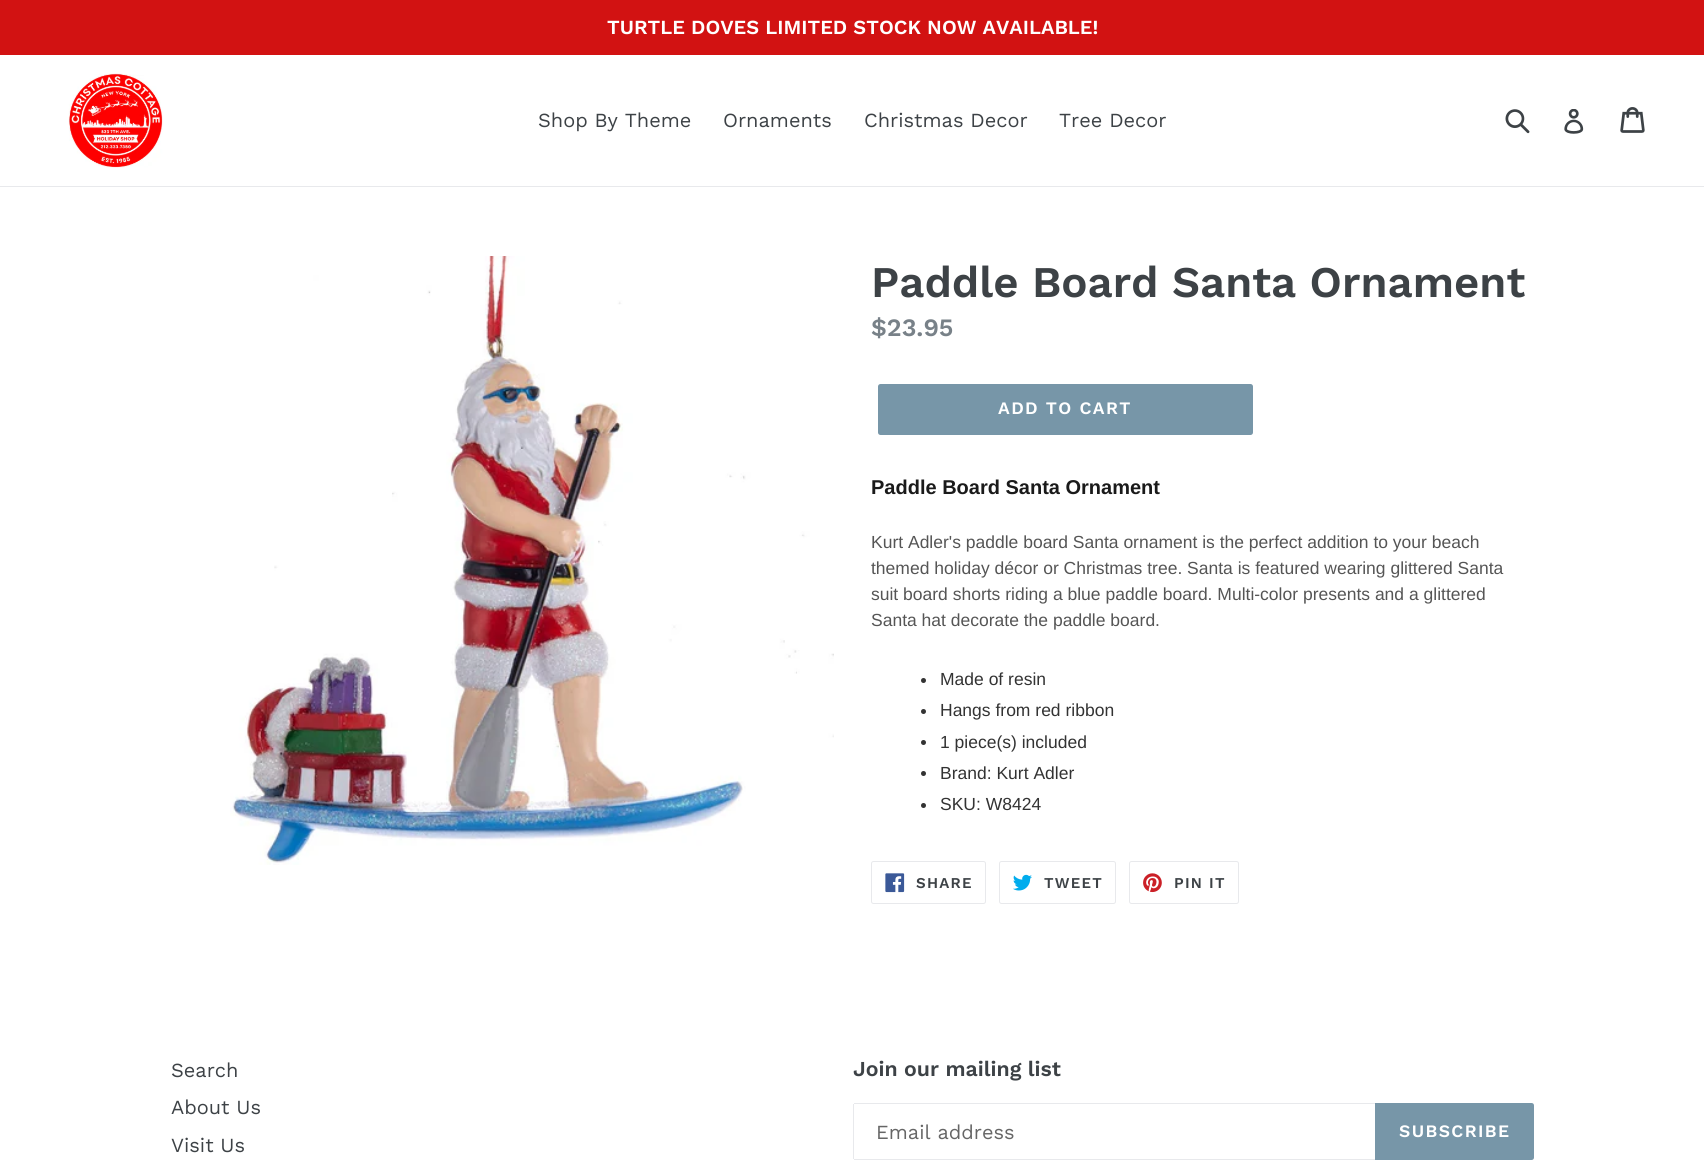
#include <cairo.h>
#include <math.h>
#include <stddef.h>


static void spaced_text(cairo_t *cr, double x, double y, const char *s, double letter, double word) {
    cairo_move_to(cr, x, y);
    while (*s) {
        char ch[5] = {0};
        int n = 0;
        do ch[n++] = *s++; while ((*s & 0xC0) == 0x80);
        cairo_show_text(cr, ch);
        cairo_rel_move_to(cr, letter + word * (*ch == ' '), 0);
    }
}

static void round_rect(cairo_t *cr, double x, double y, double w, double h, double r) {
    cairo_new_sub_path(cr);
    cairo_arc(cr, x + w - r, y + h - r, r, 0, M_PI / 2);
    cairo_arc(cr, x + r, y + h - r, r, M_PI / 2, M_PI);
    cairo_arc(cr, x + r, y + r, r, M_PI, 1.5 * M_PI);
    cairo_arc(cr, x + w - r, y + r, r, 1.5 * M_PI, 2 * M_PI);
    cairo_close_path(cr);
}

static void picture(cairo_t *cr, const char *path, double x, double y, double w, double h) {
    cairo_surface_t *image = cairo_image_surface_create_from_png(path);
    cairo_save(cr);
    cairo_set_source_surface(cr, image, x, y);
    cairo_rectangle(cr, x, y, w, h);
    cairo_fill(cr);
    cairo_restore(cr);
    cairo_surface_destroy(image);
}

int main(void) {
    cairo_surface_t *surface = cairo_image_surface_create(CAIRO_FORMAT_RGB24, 1704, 1162);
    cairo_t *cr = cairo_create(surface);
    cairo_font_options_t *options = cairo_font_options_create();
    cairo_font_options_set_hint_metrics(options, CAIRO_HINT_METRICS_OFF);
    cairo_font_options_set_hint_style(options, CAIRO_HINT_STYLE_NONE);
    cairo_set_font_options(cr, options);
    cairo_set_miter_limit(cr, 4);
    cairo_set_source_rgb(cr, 1, 1, 1);
    cairo_paint(cr);
    cairo_set_source_rgb(cr, 0.824, 0.071, 0.071);
    cairo_rectangle(cr, 0, 0, 1704, 55);
    cairo_fill(cr);
    cairo_select_font_face(cr, "Work Sans SemiBold", CAIRO_FONT_SLANT_NORMAL, CAIRO_FONT_WEIGHT_NORMAL);
    cairo_set_font_size(cr, 20);
    cairo_set_source_rgb(cr, 1, 1, 1);
    cairo_move_to(cr, 607, 34);
    cairo_show_text(cr, "TURTLE DOVES LIMITED STOCK NOW AVAILABLE!");
    cairo_set_source_rgb(cr, 0.91, 0.914, 0.922);
    cairo_rectangle(cr, 0, 186, 1704, 1);
    cairo_fill(cr);
    picture(cr, "img1.png", 68, 73, 95, 95);
    cairo_select_font_face(cr, "Work Sans", CAIRO_FONT_SLANT_NORMAL, CAIRO_FONT_WEIGHT_NORMAL);
    cairo_set_source_rgb(cr, 0.239, 0.259, 0.275);
    cairo_move_to(cr, 538, 127);
    cairo_show_text(cr, "Shop By Theme");
    cairo_move_to(cr, 723, 127);
    cairo_show_text(cr, "Ornaments");
    cairo_move_to(cr, 864, 127);
    cairo_show_text(cr, "Christmas Decor");
    cairo_move_to(cr, 1059, 127);
    cairo_show_text(cr, "Tree Decor");
    picture(cr, "img2.png", 1505, 109, 25, 25);
    picture(cr, "img3.png", 1564, 109, 20, 25);
    picture(cr, "img4.png", 1620, 107, 25, 26);
    picture(cr, "img5.png", 230, 256, 604, 609);
    cairo_select_font_face(cr, "Work Sans SemiBold", CAIRO_FONT_SLANT_NORMAL, CAIRO_FONT_WEIGHT_NORMAL);
    cairo_set_font_size(cr, 43.75);
    cairo_move_to(cr, 871, 297);
    cairo_show_text(cr, "Paddle Board Santa Ornament");
    cairo_set_font_size(cr, 25);
    cairo_set_source_rgb(cr, 0.471, 0.506, 0.533);
    cairo_move_to(cr, 871, 336);
    cairo_show_text(cr, "$23.95");
    cairo_set_source_rgb(cr, 0.467, 0.588, 0.659);
    round_rect(cr, 878, 384, 375, 51, 2.5);
    cairo_fill(cr);
    cairo_set_font_size(cr, 17.5);
    cairo_set_source_rgb(cr, 1, 1, 1);
    spaced_text(cr, 998, 414, "ADD TO CART", 1.4, 0);
    cairo_select_font_face(cr, "Liberation Sans", CAIRO_FONT_SLANT_NORMAL, CAIRO_FONT_WEIGHT_BOLD);
    cairo_set_font_size(cr, 20);
    cairo_set_source_rgb(cr, 0.102, 0.102, 0.102);
    cairo_move_to(cr, 871, 494);
    cairo_show_text(cr, "Paddle Board Santa Ornament");
    cairo_select_font_face(cr, "Liberation Sans", CAIRO_FONT_SLANT_NORMAL, CAIRO_FONT_WEIGHT_NORMAL);
    cairo_set_font_size(cr, 17.5);
    cairo_set_source_rgb(cr, 0.333, 0.333, 0.333);
    cairo_move_to(cr, 871, 548);
    cairo_show_text(cr, "Kurt Adler's paddle board Santa ornament is the perfect addition to your beach");
    cairo_move_to(cr, 871, 574);
    cairo_show_text(cr, "themed holiday décor or Christmas tree. Santa is featured wearing glittered Santa");
    cairo_move_to(cr, 871, 600);
    cairo_show_text(cr, "suit board shorts riding a blue paddle board. Multi-color presents and a glittered");
    cairo_move_to(cr, 871, 626);
    cairo_show_text(cr, "Santa hat decorate the paddle board.");
    cairo_set_source_rgb(cr, 0.2, 0.2, 0.2);
    cairo_new_path(cr);
    cairo_arc(cr, 923.5, 680.5, 2.5, 0, 2 * M_PI);
    cairo_fill(cr);
    cairo_move_to(cr, 940, 685);
    cairo_show_text(cr, "Made of resin");
    cairo_new_path(cr);
    cairo_arc(cr, 923.5, 711.5, 2.5, 0, 2 * M_PI);
    cairo_fill(cr);
    cairo_move_to(cr, 940, 716);
    cairo_show_text(cr, "Hangs from red ribbon");
    cairo_new_path(cr);
    cairo_arc(cr, 923.5, 742.5, 2.5, 0, 2 * M_PI);
    cairo_fill(cr);
    cairo_move_to(cr, 940, 748);
    cairo_show_text(cr, "1 piece(s) included");
    cairo_new_path(cr);
    cairo_arc(cr, 923.5, 773.5, 2.5, 0, 2 * M_PI);
    cairo_fill(cr);
    cairo_move_to(cr, 940, 779);
    cairo_show_text(cr, "Brand: Kurt Adler");
    cairo_new_path(cr);
    cairo_arc(cr, 923.5, 805.5, 2.5, 0, 2 * M_PI);
    cairo_fill(cr);
    cairo_move_to(cr, 940, 810);
    cairo_show_text(cr, "SKU: W8424");
    round_rect(cr, 871.5, 861.5, 114, 42, 2);
    cairo_set_source_rgb(cr, 0.91, 0.914, 0.922);
    cairo_set_line_width(cr, 1);
    cairo_stroke(cr);
    picture(cr, "img6.png", 885, 873, 20, 20);
    cairo_select_font_face(cr, "Work Sans SemiBold", CAIRO_FONT_SLANT_NORMAL, CAIRO_FONT_WEIGHT_NORMAL);
    cairo_set_font_size(cr, 15);
    cairo_set_source_rgb(cr, 0.239, 0.259, 0.275);
    spaced_text(cr, 916, 888, "SHARE", 1.25, 0);
    round_rect(cr, 999.5, 861.5, 116, 42, 2);
    cairo_set_source_rgb(cr, 0.91, 0.914, 0.922);
    cairo_stroke(cr);
    picture(cr, "img7.png", 1013, 874, 19, 17);
    cairo_set_source_rgb(cr, 0.239, 0.259, 0.275);
    spaced_text(cr, 1044, 888, "TWEET", 1.25, 0);
    round_rect(cr, 1129.5, 861.5, 109, 42, 2);
    cairo_set_source_rgb(cr, 0.91, 0.914, 0.922);
    cairo_stroke(cr);
    picture(cr, "img8.png", 1143, 873, 19, 20);
    cairo_set_source_rgb(cr, 0.239, 0.259, 0.275);
    spaced_text(cr, 1174, 888, "PIN IT", 1.25, 0);
    cairo_select_font_face(cr, "Work Sans", CAIRO_FONT_SLANT_NORMAL, CAIRO_FONT_WEIGHT_NORMAL);
    cairo_set_font_size(cr, 20);
    cairo_move_to(cr, 171, 1077);
    cairo_show_text(cr, "Search");
    cairo_move_to(cr, 171, 1114);
    cairo_show_text(cr, "About Us");
    cairo_move_to(cr, 171, 1152);
    cairo_show_text(cr, "Visit Us");
    cairo_select_font_face(cr, "Work Sans SemiBold", CAIRO_FONT_SLANT_NORMAL, CAIRO_FONT_WEIGHT_NORMAL);
    cairo_set_font_size(cr, 21.25);
    cairo_move_to(cr, 853, 1076);
    cairo_show_text(cr, "Join our mailing list");
    cairo_set_source_rgb(cr, 0.91, 0.914, 0.922);
    cairo_rectangle(cr, 854, 1103, 521, 1);
    cairo_fill(cr);
    cairo_rectangle(cr, 854, 1159, 521, 1);
    cairo_fill(cr);
    cairo_rectangle(cr, 853, 1104, 1, 55);
    cairo_fill(cr);
    cairo_select_font_face(cr, "Work Sans", CAIRO_FONT_SLANT_NORMAL, CAIRO_FONT_WEIGHT_NORMAL);
    cairo_set_font_size(cr, 20);
    cairo_set_source_rgb(cr, 0.4, 0.4, 0.4);
    cairo_move_to(cr, 876, 1139);
    cairo_show_text(cr, "Email address");
    cairo_set_source_rgb(cr, 0.467, 0.588, 0.659);
    cairo_new_path(cr);
    cairo_move_to(cr, 1375, 1103);
    cairo_line_to(cr, 1531.5, 1103);
    cairo_curve_to(cr, 1533, 1103, 1534, 1104, 1534, 1105.5);
    cairo_line_to(cr, 1534, 1157.5);
    cairo_curve_to(cr, 1534, 1159, 1533, 1160, 1531.5, 1160);
    cairo_line_to(cr, 1375, 1160);
    cairo_close_path(cr);
    cairo_fill(cr);
    cairo_select_font_face(cr, "Work Sans SemiBold", CAIRO_FONT_SLANT_NORMAL, CAIRO_FONT_WEIGHT_NORMAL);
    cairo_set_font_size(cr, 17.5);
    cairo_set_source_rgb(cr, 1, 1, 1);
    spaced_text(cr, 1399, 1137, "SUBSCRIBE", 1.4, 0);
    cairo_surface_write_to_png(surface, "page.png");
    cairo_font_options_destroy(options);
    cairo_destroy(cr);
    cairo_surface_destroy(surface);
    return 0;
}
